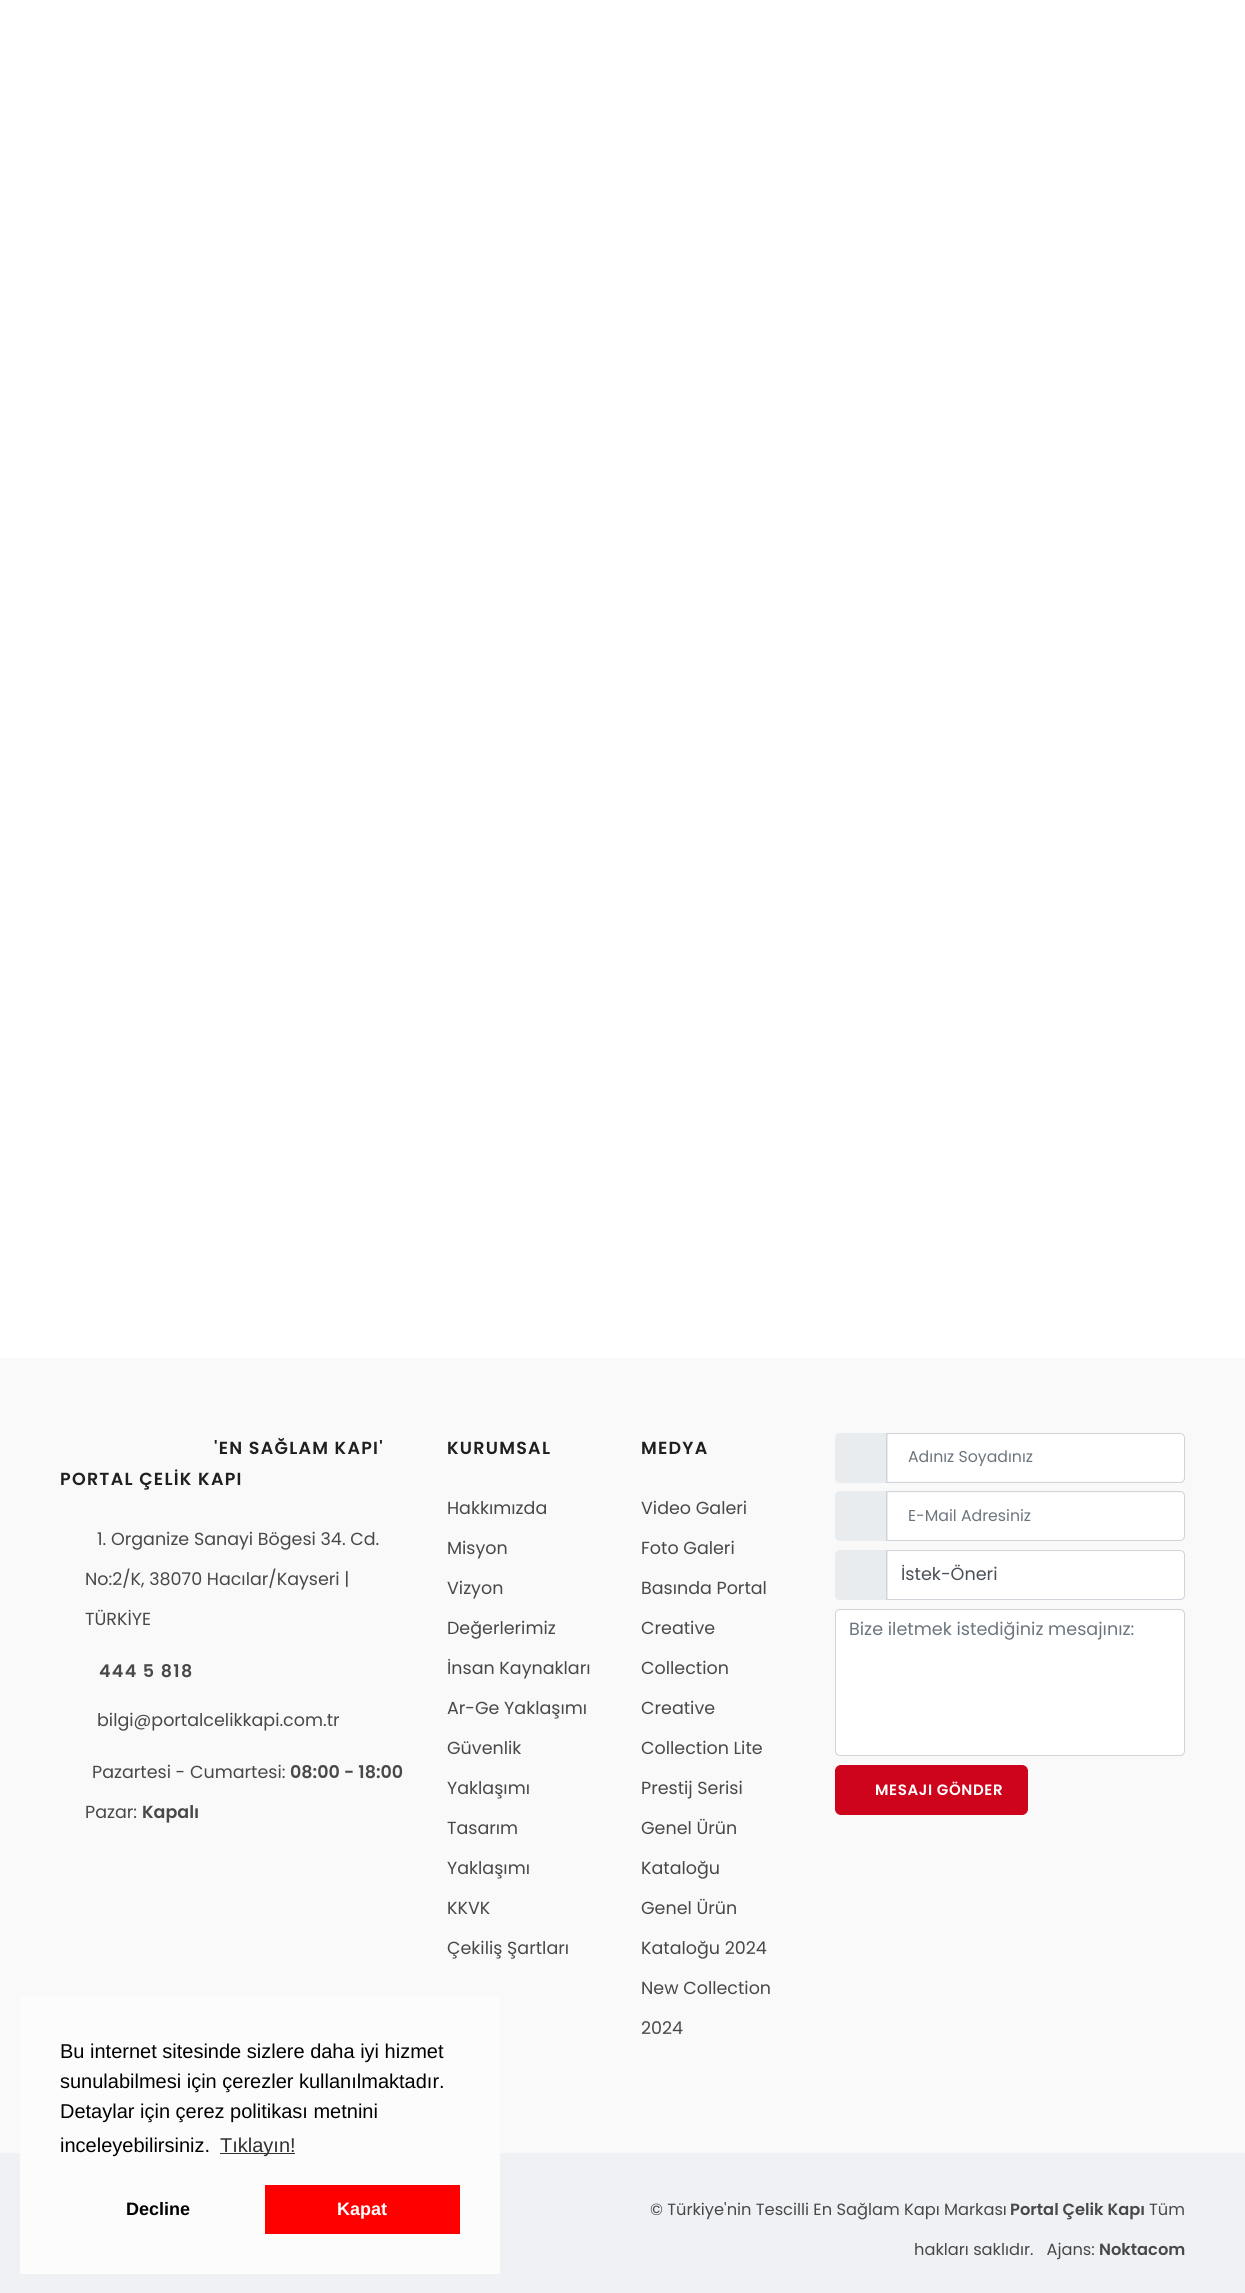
#include <cairo.h>
#include <math.h>
#include <stddef.h>


static void spaced_text(cairo_t *cr, double x, double y, const char *s, double letter, double word) {
    cairo_move_to(cr, x, y);
    while (*s) {
        char ch[5] = {0};
        int n = 0;
        do ch[n++] = *s++; while ((*s & 0xC0) == 0x80);
        cairo_show_text(cr, ch);
        cairo_rel_move_to(cr, letter + word * (*ch == ' '), 0);
    }
}

static void round_rect(cairo_t *cr, double x, double y, double w, double h, double r) {
    cairo_new_sub_path(cr);
    cairo_arc(cr, x + w - r, y + h - r, r, 0, M_PI / 2);
    cairo_arc(cr, x + r, y + h - r, r, M_PI / 2, M_PI);
    cairo_arc(cr, x + r, y + r, r, M_PI, 1.5 * M_PI);
    cairo_arc(cr, x + w - r, y + r, r, 1.5 * M_PI, 2 * M_PI);
    cairo_close_path(cr);
}

int main(void) {
    cairo_surface_t *surface = cairo_image_surface_create(CAIRO_FORMAT_RGB24, 1245, 2293);
    cairo_t *cr = cairo_create(surface);
    cairo_font_options_t *options = cairo_font_options_create();
    cairo_font_options_set_hint_metrics(options, CAIRO_HINT_METRICS_OFF);
    cairo_font_options_set_hint_style(options, CAIRO_HINT_STYLE_NONE);
    cairo_set_font_options(cr, options);
    cairo_set_miter_limit(cr, 4);
    cairo_set_source_rgb(cr, 1, 1, 1);
    cairo_paint(cr);
    cairo_set_source_rgb(cr, 0.973, 0.976, 0.98);
    cairo_rectangle(cr, 0, 1358, 1245, 795);
    cairo_fill(cr);
    cairo_select_font_face(cr, "Poppins SemiBold", CAIRO_FONT_SLANT_NORMAL, CAIRO_FONT_WEIGHT_NORMAL);
    cairo_set_font_size(cr, 17.5);
    cairo_set_source_rgb(cr, 0.122, 0.122, 0.122);
    spaced_text(cr, 214, 1454, "'EN SAĞLAM KAPI'", 1.25, 0);
    spaced_text(cr, 60, 1485, "PORTAL ÇELİK KAPI", 1.25, 0);
    cairo_select_font_face(cr, "Poppins", CAIRO_FONT_SLANT_NORMAL, CAIRO_FONT_WEIGHT_NORMAL);
    cairo_set_source_rgb(cr, 0.282, 0.282, 0.282);
    cairo_move_to(cr, 97, 1545);
    cairo_show_text(cr, "1. Organize Sanayi Bögesi 34. Cd.");
    cairo_move_to(cr, 85, 1585);
    cairo_show_text(cr, "No:2/K, 38070 Hacılar/Kayseri |");
    cairo_move_to(cr, 85, 1625);
    cairo_show_text(cr, "TÜRKİYE");
    cairo_select_font_face(cr, "Poppins SemiBold", CAIRO_FONT_SLANT_NORMAL, CAIRO_FONT_WEIGHT_NORMAL);
    spaced_text(cr, 99, 1677, "444 5 818", 1.25, 0);
    cairo_select_font_face(cr, "Poppins", CAIRO_FONT_SLANT_NORMAL, CAIRO_FONT_WEIGHT_NORMAL);
    cairo_move_to(cr, 97, 1726);
    cairo_show_text(cr, "bilgi@portalcelikkapi.com.tr");
    cairo_move_to(cr, 92, 1778);
    cairo_show_text(cr, "Pazartesi - Cumartesi:");
    cairo_select_font_face(cr, "Poppins SemiBold", CAIRO_FONT_SLANT_NORMAL, CAIRO_FONT_WEIGHT_NORMAL);
    cairo_move_to(cr, 290, 1778);
    cairo_show_text(cr, "08:00 - 18:00");
    cairo_select_font_face(cr, "Poppins", CAIRO_FONT_SLANT_NORMAL, CAIRO_FONT_WEIGHT_NORMAL);
    cairo_move_to(cr, 85, 1818);
    cairo_show_text(cr, "Pazar:");
    cairo_select_font_face(cr, "Poppins SemiBold", CAIRO_FONT_SLANT_NORMAL, CAIRO_FONT_WEIGHT_NORMAL);
    cairo_move_to(cr, 142, 1818);
    cairo_show_text(cr, "Kapalı");
    cairo_set_source_rgb(cr, 0.122, 0.122, 0.122);
    spaced_text(cr, 447, 1454, "KURUMSAL", 1.25, 0);
    cairo_select_font_face(cr, "Poppins", CAIRO_FONT_SLANT_NORMAL, CAIRO_FONT_WEIGHT_NORMAL);
    cairo_set_source_rgb(cr, 0.282, 0.282, 0.282);
    cairo_move_to(cr, 447, 1514);
    cairo_show_text(cr, "Hakkımızda");
    cairo_move_to(cr, 447, 1554);
    cairo_show_text(cr, "Misyon");
    cairo_move_to(cr, 447, 1594);
    cairo_show_text(cr, "Vizyon");
    cairo_move_to(cr, 447, 1634);
    cairo_show_text(cr, "Değerlerimiz");
    cairo_move_to(cr, 447, 1674);
    cairo_show_text(cr, "İnsan Kaynakları");
    cairo_move_to(cr, 447, 1714);
    cairo_show_text(cr, "Ar-Ge Yaklaşımı");
    cairo_move_to(cr, 447, 1754);
    cairo_show_text(cr, "Güvenlik");
    cairo_move_to(cr, 447, 1794);
    cairo_show_text(cr, "Yaklaşımı");
    cairo_move_to(cr, 447, 1834);
    cairo_show_text(cr, "Tasarım");
    cairo_move_to(cr, 447, 1874);
    cairo_show_text(cr, "Yaklaşımı");
    cairo_move_to(cr, 447, 1914);
    cairo_show_text(cr, "KKVK");
    cairo_move_to(cr, 447, 1954);
    cairo_show_text(cr, "Çekiliş Şartları");
    cairo_select_font_face(cr, "Poppins SemiBold", CAIRO_FONT_SLANT_NORMAL, CAIRO_FONT_WEIGHT_NORMAL);
    cairo_set_source_rgb(cr, 0.122, 0.122, 0.122);
    spaced_text(cr, 641, 1454, "MEDYA", 1.25, 0);
    cairo_select_font_face(cr, "Poppins", CAIRO_FONT_SLANT_NORMAL, CAIRO_FONT_WEIGHT_NORMAL);
    cairo_set_source_rgb(cr, 0.282, 0.282, 0.282);
    cairo_move_to(cr, 641, 1514);
    cairo_show_text(cr, "Video Galeri");
    cairo_move_to(cr, 641, 1554);
    cairo_show_text(cr, "Foto Galeri");
    cairo_move_to(cr, 641, 1594);
    cairo_show_text(cr, "Basında Portal");
    cairo_move_to(cr, 641, 1634);
    cairo_show_text(cr, "Creative");
    cairo_move_to(cr, 641, 1674);
    cairo_show_text(cr, "Collection");
    cairo_move_to(cr, 641, 1714);
    cairo_show_text(cr, "Creative");
    cairo_move_to(cr, 641, 1754);
    cairo_show_text(cr, "Collection Lite");
    cairo_move_to(cr, 641, 1794);
    cairo_show_text(cr, "Prestij Serisi");
    cairo_move_to(cr, 641, 1834);
    cairo_show_text(cr, "Genel Ürün");
    cairo_move_to(cr, 641, 1874);
    cairo_show_text(cr, "Kataloğu");
    cairo_move_to(cr, 641, 1914);
    cairo_show_text(cr, "Genel Ürün");
    cairo_move_to(cr, 641, 1954);
    cairo_show_text(cr, "Kataloğu 2024");
    cairo_move_to(cr, 641, 1994);
    cairo_show_text(cr, "New Collection");
    cairo_move_to(cr, 641, 2034);
    cairo_show_text(cr, "2024");
    cairo_set_source_rgb(cr, 0.914, 0.925, 0.937);
    cairo_new_path(cr);
    cairo_move_to(cr, 840, 1433);
    cairo_line_to(cr, 888, 1433);
    cairo_line_to(cr, 888, 1483);
    cairo_line_to(cr, 840, 1483);
    cairo_curve_to(cr, 837, 1483, 835, 1481, 835, 1478);
    cairo_line_to(cr, 835, 1438);
    cairo_curve_to(cr, 835, 1435, 837, 1433, 840, 1433);
    cairo_close_path(cr);
    cairo_fill(cr);
    cairo_set_source_rgb(cr, 1, 1, 1);
    cairo_new_path(cr);
    cairo_move_to(cr, 888, 1434);
    cairo_line_to(cr, 1181, 1434);
    cairo_curve_to(cr, 1182.5, 1434, 1184, 1435.5, 1184, 1437);
    cairo_line_to(cr, 1184, 1478);
    cairo_curve_to(cr, 1184, 1479.5, 1182.5, 1481, 1181, 1481);
    cairo_line_to(cr, 888, 1481);
    cairo_close_path(cr);
    cairo_fill(cr);
    cairo_new_path(cr);
    cairo_move_to(cr, 886.5, 1433.5);
    cairo_line_to(cr, 1180, 1433.5);
    cairo_curve_to(cr, 1182.5, 1433.5, 1184.5, 1435.5, 1184.5, 1438);
    cairo_line_to(cr, 1184.5, 1478);
    cairo_curve_to(cr, 1184.5, 1480.5, 1182.5, 1482.5, 1180, 1482.5);
    cairo_line_to(cr, 886.5, 1482.5);
    cairo_close_path(cr);
    cairo_set_source_rgb(cr, 0.808, 0.831, 0.855);
    cairo_set_line_width(cr, 1);
    cairo_stroke(cr);
    cairo_set_font_size(cr, 15.75);
    cairo_set_source_rgb(cr, 0.424, 0.459, 0.49);
    cairo_move_to(cr, 908, 1462);
    cairo_show_text(cr, "Adınız Soyadınız");
    cairo_set_source_rgb(cr, 0.914, 0.925, 0.937);
    cairo_new_path(cr);
    cairo_move_to(cr, 840, 1491);
    cairo_line_to(cr, 888, 1491);
    cairo_line_to(cr, 888, 1541);
    cairo_line_to(cr, 840, 1541);
    cairo_curve_to(cr, 837, 1541, 835, 1539, 835, 1536);
    cairo_line_to(cr, 835, 1496);
    cairo_curve_to(cr, 835, 1493, 837, 1491, 840, 1491);
    cairo_close_path(cr);
    cairo_fill(cr);
    cairo_set_source_rgb(cr, 1, 1, 1);
    cairo_new_path(cr);
    cairo_move_to(cr, 888, 1493);
    cairo_line_to(cr, 1181, 1493);
    cairo_curve_to(cr, 1182.5, 1493, 1184, 1494.5, 1184, 1496);
    cairo_line_to(cr, 1184, 1537);
    cairo_curve_to(cr, 1184, 1538.5, 1182.5, 1540, 1181, 1540);
    cairo_line_to(cr, 888, 1540);
    cairo_close_path(cr);
    cairo_fill(cr);
    cairo_new_path(cr);
    cairo_move_to(cr, 886.5, 1491.5);
    cairo_line_to(cr, 1180, 1491.5);
    cairo_curve_to(cr, 1182.5, 1491.5, 1184.5, 1493.5, 1184.5, 1496);
    cairo_line_to(cr, 1184.5, 1536);
    cairo_curve_to(cr, 1184.5, 1538.5, 1182.5, 1540.5, 1180, 1540.5);
    cairo_line_to(cr, 886.5, 1540.5);
    cairo_close_path(cr);
    cairo_set_source_rgb(cr, 0.808, 0.831, 0.855);
    cairo_stroke(cr);
    cairo_set_source_rgb(cr, 0.424, 0.459, 0.49);
    cairo_move_to(cr, 908, 1521);
    cairo_show_text(cr, "E-Mail Adresiniz");
    cairo_set_source_rgb(cr, 0.914, 0.925, 0.937);
    cairo_new_path(cr);
    cairo_move_to(cr, 840, 1550);
    cairo_line_to(cr, 888, 1550);
    cairo_line_to(cr, 888, 1600);
    cairo_line_to(cr, 840, 1600);
    cairo_curve_to(cr, 837, 1600, 835, 1598, 835, 1595);
    cairo_line_to(cr, 835, 1555);
    cairo_curve_to(cr, 835, 1552, 837, 1550, 840, 1550);
    cairo_close_path(cr);
    cairo_fill(cr);
    cairo_set_source_rgb(cr, 1, 1, 1);
    cairo_new_path(cr);
    cairo_move_to(cr, 888, 1551);
    cairo_line_to(cr, 1181, 1551);
    cairo_curve_to(cr, 1182.5, 1551, 1184, 1552.5, 1184, 1554);
    cairo_line_to(cr, 1184, 1596);
    cairo_curve_to(cr, 1184, 1597.5, 1182.5, 1599, 1181, 1599);
    cairo_line_to(cr, 888, 1599);
    cairo_close_path(cr);
    cairo_fill(cr);
    cairo_new_path(cr);
    cairo_move_to(cr, 886.5, 1550.5);
    cairo_line_to(cr, 1180, 1550.5);
    cairo_curve_to(cr, 1182.5, 1550.5, 1184.5, 1552.5, 1184.5, 1555);
    cairo_line_to(cr, 1184.5, 1595);
    cairo_curve_to(cr, 1184.5, 1597.5, 1182.5, 1599.5, 1180, 1599.5);
    cairo_line_to(cr, 886.5, 1599.5);
    cairo_close_path(cr);
    cairo_set_source_rgb(cr, 0.808, 0.831, 0.855);
    cairo_stroke(cr);
    cairo_set_font_size(cr, 17.6);
    cairo_set_source_rgb(cr, 0.286, 0.314, 0.341);
    cairo_move_to(cr, 901, 1580);
    cairo_show_text(cr, "İstek-Öneri");
    cairo_set_source_rgb(cr, 1, 1, 1);
    round_rect(cr, 836, 1610, 348, 145, 3);
    cairo_fill(cr);
    round_rect(cr, 835.5, 1609.5, 349, 146, 4.5);
    cairo_set_source_rgb(cr, 0.808, 0.831, 0.855);
    cairo_stroke(cr);
    cairo_set_source_rgb(cr, 0.424, 0.459, 0.49);
    cairo_move_to(cr, 849, 1635);
    cairo_show_text(cr, "Bize iletmek istediğiniz mesajınız:");
    cairo_set_source_rgb(cr, 0.808, 0.016, 0.11);
    round_rect(cr, 835.5, 1765.5, 192, 49, 5.5);
    cairo_fill_preserve(cr);
    cairo_stroke(cr);
    cairo_select_font_face(cr, "Poppins SemiBold", CAIRO_FONT_SLANT_NORMAL, CAIRO_FONT_WEIGHT_NORMAL);
    cairo_set_font_size(cr, 15);
    cairo_set_source_rgb(cr, 1, 1, 1);
    spaced_text(cr, 875, 1795, "MESAJI GÖNDER", 0.6, 0);
    cairo_set_source_rgb(cr, 0.937, 0.945, 0.957);
    cairo_rectangle(cr, 0, 2153, 1245, 140);
    cairo_fill(cr);
    cairo_select_font_face(cr, "Poppins", CAIRO_FONT_SLANT_NORMAL, CAIRO_FONT_WEIGHT_NORMAL);
    cairo_set_font_size(cr, 16.25);
    cairo_set_source_rgb(cr, 0.282, 0.282, 0.282);
    cairo_move_to(cr, 650, 2215);
    cairo_show_text(cr, "© Türkiye'nin Tescilli En Sağlam Kapı Markası");
    cairo_select_font_face(cr, "Poppins SemiBold", CAIRO_FONT_SLANT_NORMAL, CAIRO_FONT_WEIGHT_NORMAL);
    cairo_move_to(cr, 1010, 2215);
    cairo_show_text(cr, "Portal Çelik Kapı");
    cairo_select_font_face(cr, "Poppins", CAIRO_FONT_SLANT_NORMAL, CAIRO_FONT_WEIGHT_NORMAL);
    cairo_move_to(cr, 1149, 2215);
    cairo_show_text(cr, "Tüm");
    cairo_move_to(cr, 914, 2255);
    cairo_show_text(cr, "hakları saklıdır.   Ajans:");
    cairo_select_font_face(cr, "Poppins SemiBold", CAIRO_FONT_SLANT_NORMAL, CAIRO_FONT_WEIGHT_NORMAL);
    cairo_move_to(cr, 1099, 2255);
    cairo_show_text(cr, "Noktacom");
    cairo_set_source_rgb(cr, 0.988, 0.988, 0.988);
    cairo_rectangle(cr, 20, 1996, 480, 278);
    cairo_fill(cr);
    cairo_select_font_face(cr, "Liberation Sans", CAIRO_FONT_SLANT_NORMAL, CAIRO_FONT_WEIGHT_NORMAL);
    cairo_set_font_size(cr, 20);
    cairo_set_source_rgb(cr, 0, 0, 0);
    cairo_move_to(cr, 60, 2058);
    cairo_show_text(cr, "Bu internet sitesinde sizlere daha iyi hizmet");
    cairo_move_to(cr, 60, 2088);
    cairo_show_text(cr, "sunulabilmesi için çerezler kullanılmaktadır.");
    cairo_move_to(cr, 60, 2118);
    cairo_show_text(cr, "Detaylar için çerez politikası metnini");
    cairo_move_to(cr, 60, 2152);
    cairo_show_text(cr, "inceleyebilirsiniz.");
    cairo_set_source_rgb(cr, 0.196, 0.196, 0.196);
    cairo_rectangle(cr, 220, 2153, 75, 1);
    cairo_fill(cr);
    cairo_move_to(cr, 220, 2152);
    cairo_show_text(cr, "Tıklayın!");
    cairo_select_font_face(cr, "Liberation Sans", CAIRO_FONT_SLANT_NORMAL, CAIRO_FONT_WEIGHT_BOLD);
    cairo_set_font_size(cr, 18);
    cairo_set_source_rgb(cr, 0, 0, 0);
    cairo_move_to(cr, 126, 2215);
    cairo_show_text(cr, "Decline");
    cairo_set_source_rgb(cr, 1, 0, 0);
    cairo_rectangle(cr, 265, 2185, 195, 49);
    cairo_fill(cr);
    cairo_set_source_rgb(cr, 1, 1, 1);
    cairo_move_to(cr, 337, 2215);
    cairo_show_text(cr, "Kapat");
    cairo_surface_write_to_png(surface, "page.png");
    cairo_font_options_destroy(options);
    cairo_destroy(cr);
    cairo_surface_destroy(surface);
    return 0;
}
